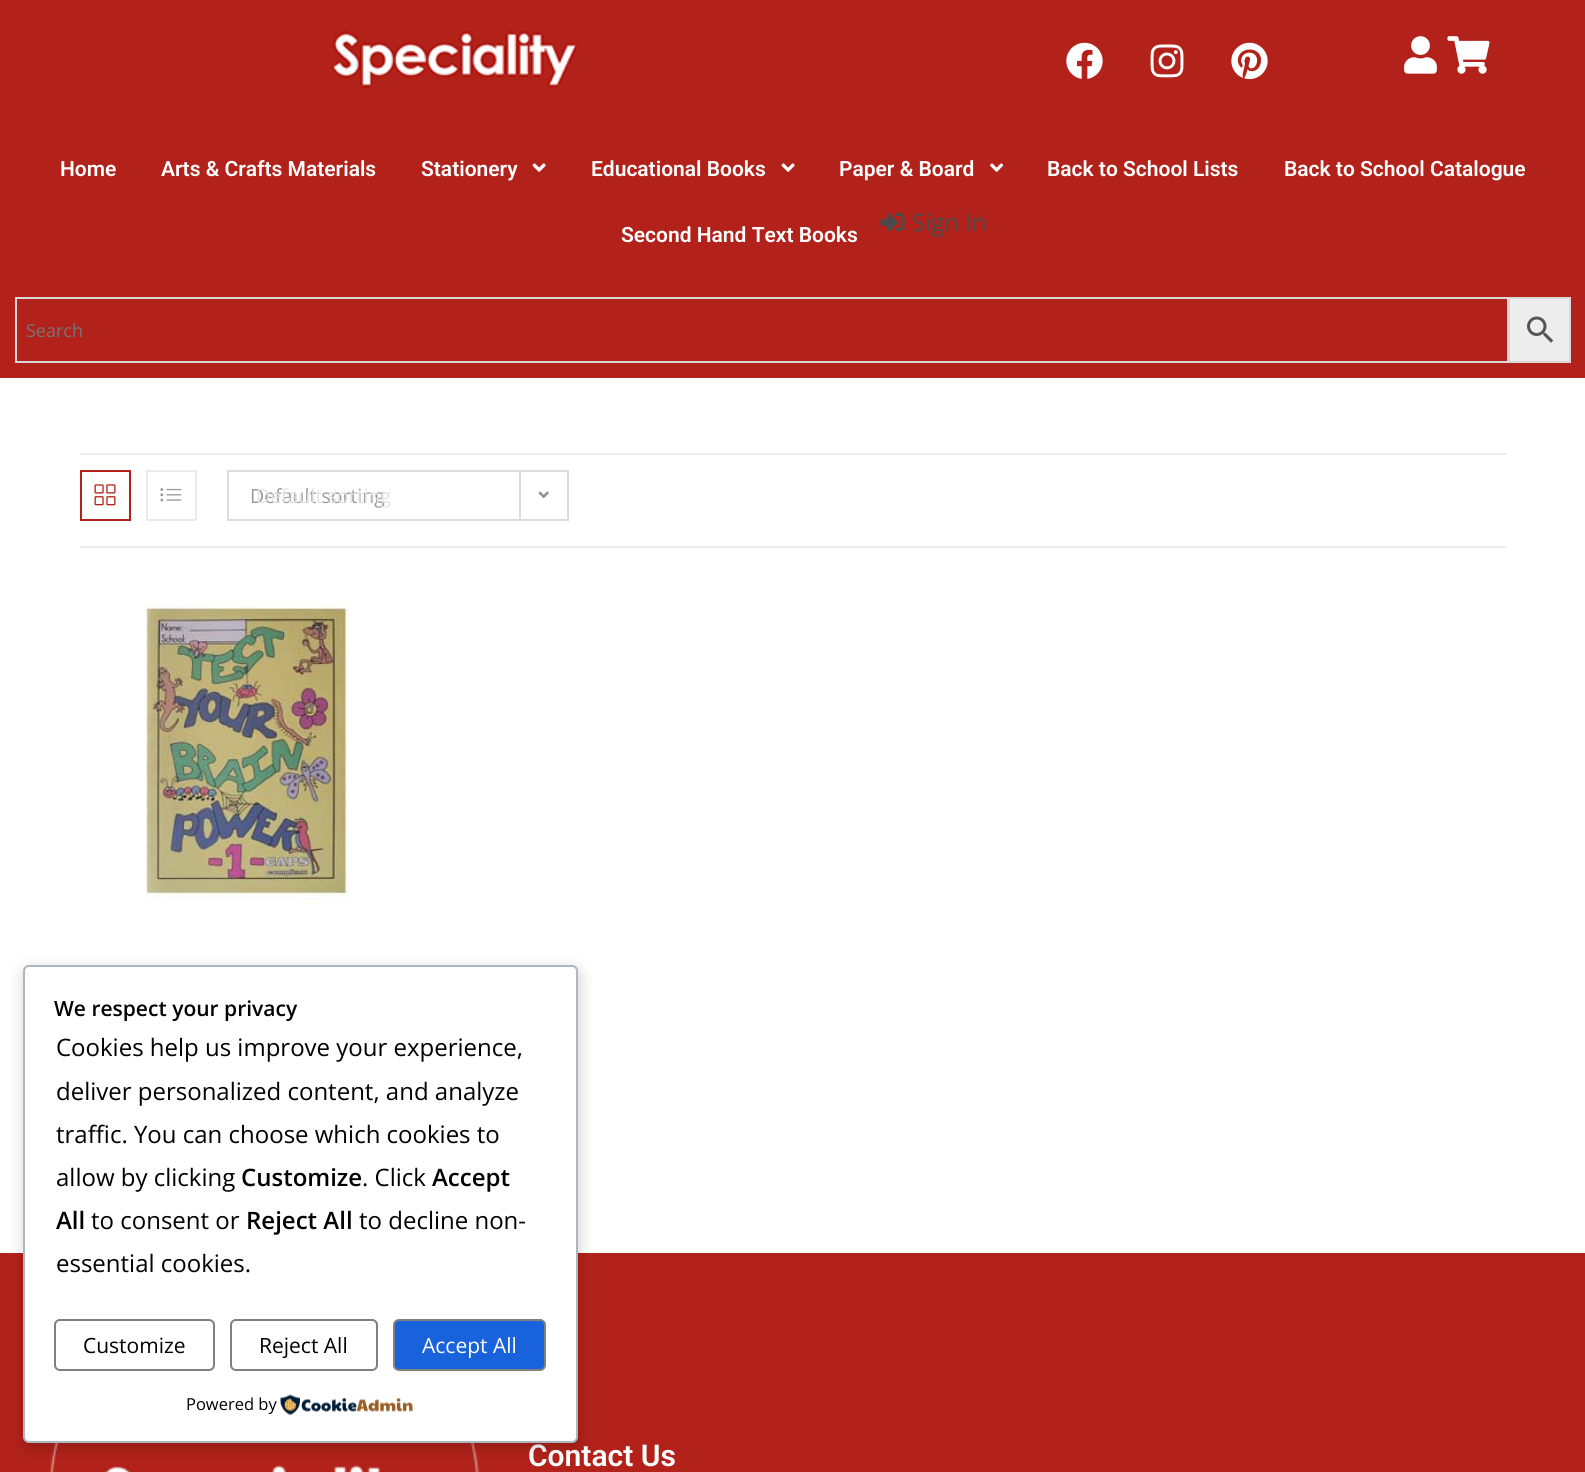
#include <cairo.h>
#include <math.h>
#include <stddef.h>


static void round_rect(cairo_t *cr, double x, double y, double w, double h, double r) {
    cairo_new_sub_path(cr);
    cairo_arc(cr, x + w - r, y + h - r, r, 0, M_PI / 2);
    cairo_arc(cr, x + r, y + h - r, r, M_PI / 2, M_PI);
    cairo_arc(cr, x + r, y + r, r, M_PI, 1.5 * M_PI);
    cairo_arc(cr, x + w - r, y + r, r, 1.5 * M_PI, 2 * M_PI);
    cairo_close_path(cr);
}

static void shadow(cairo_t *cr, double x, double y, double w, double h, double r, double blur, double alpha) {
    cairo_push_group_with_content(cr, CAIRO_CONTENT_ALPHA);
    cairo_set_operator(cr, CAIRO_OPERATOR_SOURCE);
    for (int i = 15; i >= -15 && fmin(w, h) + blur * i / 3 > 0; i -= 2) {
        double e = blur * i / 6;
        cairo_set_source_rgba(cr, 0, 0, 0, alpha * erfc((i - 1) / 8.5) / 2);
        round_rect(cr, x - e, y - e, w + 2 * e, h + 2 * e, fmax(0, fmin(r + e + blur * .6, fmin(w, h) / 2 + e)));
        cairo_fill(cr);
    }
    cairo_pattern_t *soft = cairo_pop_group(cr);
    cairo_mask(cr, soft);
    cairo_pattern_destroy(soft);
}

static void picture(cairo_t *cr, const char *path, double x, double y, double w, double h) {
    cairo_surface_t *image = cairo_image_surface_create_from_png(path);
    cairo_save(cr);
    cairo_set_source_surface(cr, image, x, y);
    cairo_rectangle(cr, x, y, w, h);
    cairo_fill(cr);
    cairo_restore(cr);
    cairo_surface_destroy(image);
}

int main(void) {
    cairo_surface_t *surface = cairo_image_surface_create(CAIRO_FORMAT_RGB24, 1585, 1472);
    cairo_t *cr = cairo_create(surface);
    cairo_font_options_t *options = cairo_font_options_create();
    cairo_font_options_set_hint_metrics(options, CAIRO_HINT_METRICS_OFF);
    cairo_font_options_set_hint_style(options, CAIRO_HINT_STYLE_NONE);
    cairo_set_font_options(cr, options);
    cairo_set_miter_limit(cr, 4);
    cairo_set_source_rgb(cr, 1, 1, 1);
    cairo_paint(cr);
    cairo_set_source_rgb(cr, 0.698, 0.133, 0.102);
    cairo_rectangle(cr, 0, 0, 1585, 378);
    cairo_fill(cr);
    picture(cr, "img1.png", 331, 31, 247, 57);
    picture(cr, "img2.png", 1066, 42, 37, 37);
    picture(cr, "img3.png", 1150, 44, 34, 34);
    picture(cr, "img4.png", 1231, 42, 37, 38);
    picture(cr, "img5.png", 1404, 36, 33, 38);
    picture(cr, "img6.png", 1447, 36, 43, 38);
    cairo_select_font_face(cr, "Roboto SemiBold", CAIRO_FONT_SLANT_NORMAL, CAIRO_FONT_WEIGHT_NORMAL);
    cairo_set_font_size(cr, 21);
    cairo_set_source_rgb(cr, 1, 1, 1);
    cairo_move_to(cr, 60, 176);
    cairo_show_text(cr, "Home");
    cairo_move_to(cr, 161, 176);
    cairo_show_text(cr, "Arts & Crafts Materials");
    cairo_move_to(cr, 421, 176);
    cairo_show_text(cr, "Stationery");
    picture(cr, "img7.png", 532, 163, 14, 9);
    cairo_move_to(cr, 591, 176);
    cairo_show_text(cr, "Educational Books");
    picture(cr, "img7.png", 781, 163, 14, 9);
    cairo_move_to(cr, 839, 176);
    cairo_show_text(cr, "Paper & Board");
    picture(cr, "img8.png", 990, 163, 14, 9);
    cairo_move_to(cr, 1047, 176);
    cairo_show_text(cr, "Back to School Lists");
    cairo_move_to(cr, 1284, 176);
    cairo_show_text(cr, "Back to School Catalogue");
    cairo_move_to(cr, 621, 242);
    cairo_show_text(cr, "Second Hand Text Books");
    picture(cr, "img9.png", 880, 213, 25, 19);
    cairo_select_font_face(cr, "Open Sans", CAIRO_FONT_SLANT_NORMAL, CAIRO_FONT_WEIGHT_NORMAL);
    cairo_set_font_size(cr, 24);
    cairo_set_source_rgb(cr, 0.29, 0.29, 0.29);
    cairo_move_to(cr, 912, 231);
    cairo_show_text(cr, "Sign In");
    cairo_set_source_rgb(cr, 0.929, 0.929, 0.929);
    cairo_rectangle(cr, 1509, 298, 61, 64);
    cairo_fill_preserve(cr);
    cairo_set_source_rgb(cr, 0.847, 0.847, 0.847);
    cairo_stroke(cr);
    cairo_rectangle(cr, 16, 298, 1492, 64);
    cairo_stroke(cr);
    cairo_set_font_size(cr, 18);
    cairo_set_source_rgb(cr, 0.459, 0.459, 0.459);
    cairo_move_to(cr, 26, 337);
    cairo_show_text(cr, "Search");
    picture(cr, "img10.png", 1527, 316, 27, 27);
    cairo_set_source_rgb(cr, 0.918, 0.918, 0.918);
    cairo_rectangle(cr, 80, 453, 1426, 2);
    cairo_fill(cr);
    cairo_rectangle(cr, 80, 546, 1426, 2);
    cairo_fill(cr);
    cairo_rectangle(cr, 81, 471, 49, 49);
    cairo_set_source_rgb(cr, 0.698, 0.133, 0.102);
    cairo_stroke(cr);
    picture(cr, "img11.png", 94, 484, 22, 22);
    cairo_rectangle(cr, 147, 471, 49, 49);
    cairo_set_source_rgb(cr, 0.918, 0.918, 0.918);
    cairo_stroke(cr);
    picture(cr, "img12.png", 160, 488, 22, 14);
    cairo_rectangle(cr, 228, 471, 340, 49);
    cairo_set_source_rgb(cr, 0.867, 0.867, 0.867);
    cairo_stroke(cr);
    cairo_set_font_size(cr, 19.5);
    cairo_set_source_rgb(cr, 0.6, 0.6, 0.6);
    cairo_move_to(cr, 250, 503);
    cairo_show_text(cr, "Default sorting");
    cairo_set_source_rgb(cr, 0.867, 0.867, 0.867);
    cairo_rectangle(cr, 519, 471, 2, 48);
    cairo_fill(cr);
    picture(cr, "img13.png", 538, 491, 11, 8);
    cairo_set_source_rgb(cr, 0.886, 0.886, 0.886);
    cairo_move_to(cr, 256, 503);
    cairo_show_text(cr, "Default sorting");
    picture(cr, "img14.png", 145, 597, 205, 306);
    cairo_set_source_rgb(cr, 0.698, 0.133, 0.102);
    cairo_rectangle(cr, 0, 1253, 1585, 219);
    cairo_fill(cr);
    picture(cr, "img15.png", 49, 1443, 430, 29);
    cairo_select_font_face(cr, "Roboto SemiBold", CAIRO_FONT_SLANT_NORMAL, CAIRO_FONT_WEIGHT_NORMAL);
    cairo_set_font_size(cr, 30);
    cairo_set_source_rgb(cr, 1, 1, 1);
    cairo_move_to(cr, 528, 1466);
    cairo_show_text(cr, "Contact Us");
    cairo_set_source_rgb(cr, 0, 0, 0);
    shadow(cr, 24, 969, 555, 479, 6, 7.5, 0.2);
    cairo_set_source_rgb(cr, 1, 1, 1);
    round_rect(cr, 24, 966, 553, 476, 5);
    cairo_fill_preserve(cr);
    cairo_set_source_rgb(cr, 0.671, 0.722, 0.765);
    cairo_stroke(cr);
    cairo_select_font_face(cr, "Open Sans SemiBold", CAIRO_FONT_SLANT_NORMAL, CAIRO_FONT_WEIGHT_NORMAL);
    cairo_set_font_size(cr, 21);
    cairo_set_source_rgb(cr, 0, 0, 0);
    cairo_move_to(cr, 54, 1016);
    cairo_show_text(cr, "We respect your privacy");
    cairo_select_font_face(cr, "Open Sans", CAIRO_FONT_SLANT_NORMAL, CAIRO_FONT_WEIGHT_NORMAL);
    cairo_set_font_size(cr, 24);
    cairo_move_to(cr, 56, 1056);
    cairo_show_text(cr, "Cookies help us improve your experience,");
    cairo_move_to(cr, 56, 1100);
    cairo_show_text(cr, "deliver personalized content, and analyze");
    cairo_move_to(cr, 56, 1143);
    cairo_show_text(cr, "traffic. You can choose which cookies to");
    cairo_move_to(cr, 56, 1186);
    cairo_show_text(cr, "allow by clicking");
    cairo_select_font_face(cr, "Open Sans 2 SemiBold", CAIRO_FONT_SLANT_NORMAL, CAIRO_FONT_WEIGHT_NORMAL);
    cairo_move_to(cr, 241, 1186);
    cairo_show_text(cr, "Customize");
    cairo_select_font_face(cr, "Open Sans", CAIRO_FONT_SLANT_NORMAL, CAIRO_FONT_WEIGHT_NORMAL);
    cairo_move_to(cr, 362, 1186);
    cairo_show_text(cr, ". Click");
    cairo_select_font_face(cr, "Open Sans 2 SemiBold", CAIRO_FONT_SLANT_NORMAL, CAIRO_FONT_WEIGHT_NORMAL);
    cairo_move_to(cr, 432, 1186);
    cairo_show_text(cr, "Accept");
    cairo_move_to(cr, 56, 1229);
    cairo_show_text(cr, "All");
    cairo_select_font_face(cr, "Open Sans", CAIRO_FONT_SLANT_NORMAL, CAIRO_FONT_WEIGHT_NORMAL);
    cairo_move_to(cr, 91, 1229);
    cairo_show_text(cr, "to consent or");
    cairo_select_font_face(cr, "Open Sans 2 SemiBold", CAIRO_FONT_SLANT_NORMAL, CAIRO_FONT_WEIGHT_NORMAL);
    cairo_move_to(cr, 246, 1229);
    cairo_show_text(cr, "Reject All");
    cairo_select_font_face(cr, "Open Sans", CAIRO_FONT_SLANT_NORMAL, CAIRO_FONT_WEIGHT_NORMAL);
    cairo_move_to(cr, 359, 1229);
    cairo_show_text(cr, "to decline non-");
    cairo_move_to(cr, 56, 1272);
    cairo_show_text(cr, "essential cookies.");
    round_rect(cr, 55, 1320, 159, 50, 5);
    cairo_set_source_rgb(cr, 0.502, 0.502, 0.502);
    cairo_stroke(cr);
    cairo_set_font_size(cr, 21);
    cairo_set_source_rgb(cr, 0, 0, 0);
    cairo_move_to(cr, 83, 1353);
    cairo_show_text(cr, "Customize");
    round_rect(cr, 231, 1320, 146, 50, 5);
    cairo_set_source_rgb(cr, 0.502, 0.502, 0.502);
    cairo_stroke(cr);
    cairo_set_source_rgb(cr, 0, 0, 0);
    cairo_move_to(cr, 259, 1353);
    cairo_show_text(cr, "Reject All");
    cairo_set_source_rgb(cr, 0.094, 0.388, 0.863);
    round_rect(cr, 394, 1320, 151, 50, 5);
    cairo_fill_preserve(cr);
    cairo_set_source_rgb(cr, 0.502, 0.502, 0.502);
    cairo_stroke(cr);
    cairo_set_source_rgb(cr, 1, 1, 1);
    cairo_move_to(cr, 422, 1353);
    cairo_show_text(cr, "Accept All");
    cairo_set_font_size(cr, 16.5);
    cairo_set_source_rgb(cr, 0, 0, 0);
    cairo_move_to(cr, 186, 1410);
    cairo_show_text(cr, "Powered by");
    picture(cr, "img16.png", 280, 1394, 133, 22);
    cairo_surface_write_to_png(surface, "page.png");
    cairo_font_options_destroy(options);
    cairo_destroy(cr);
    cairo_surface_destroy(surface);
    return 0;
}
